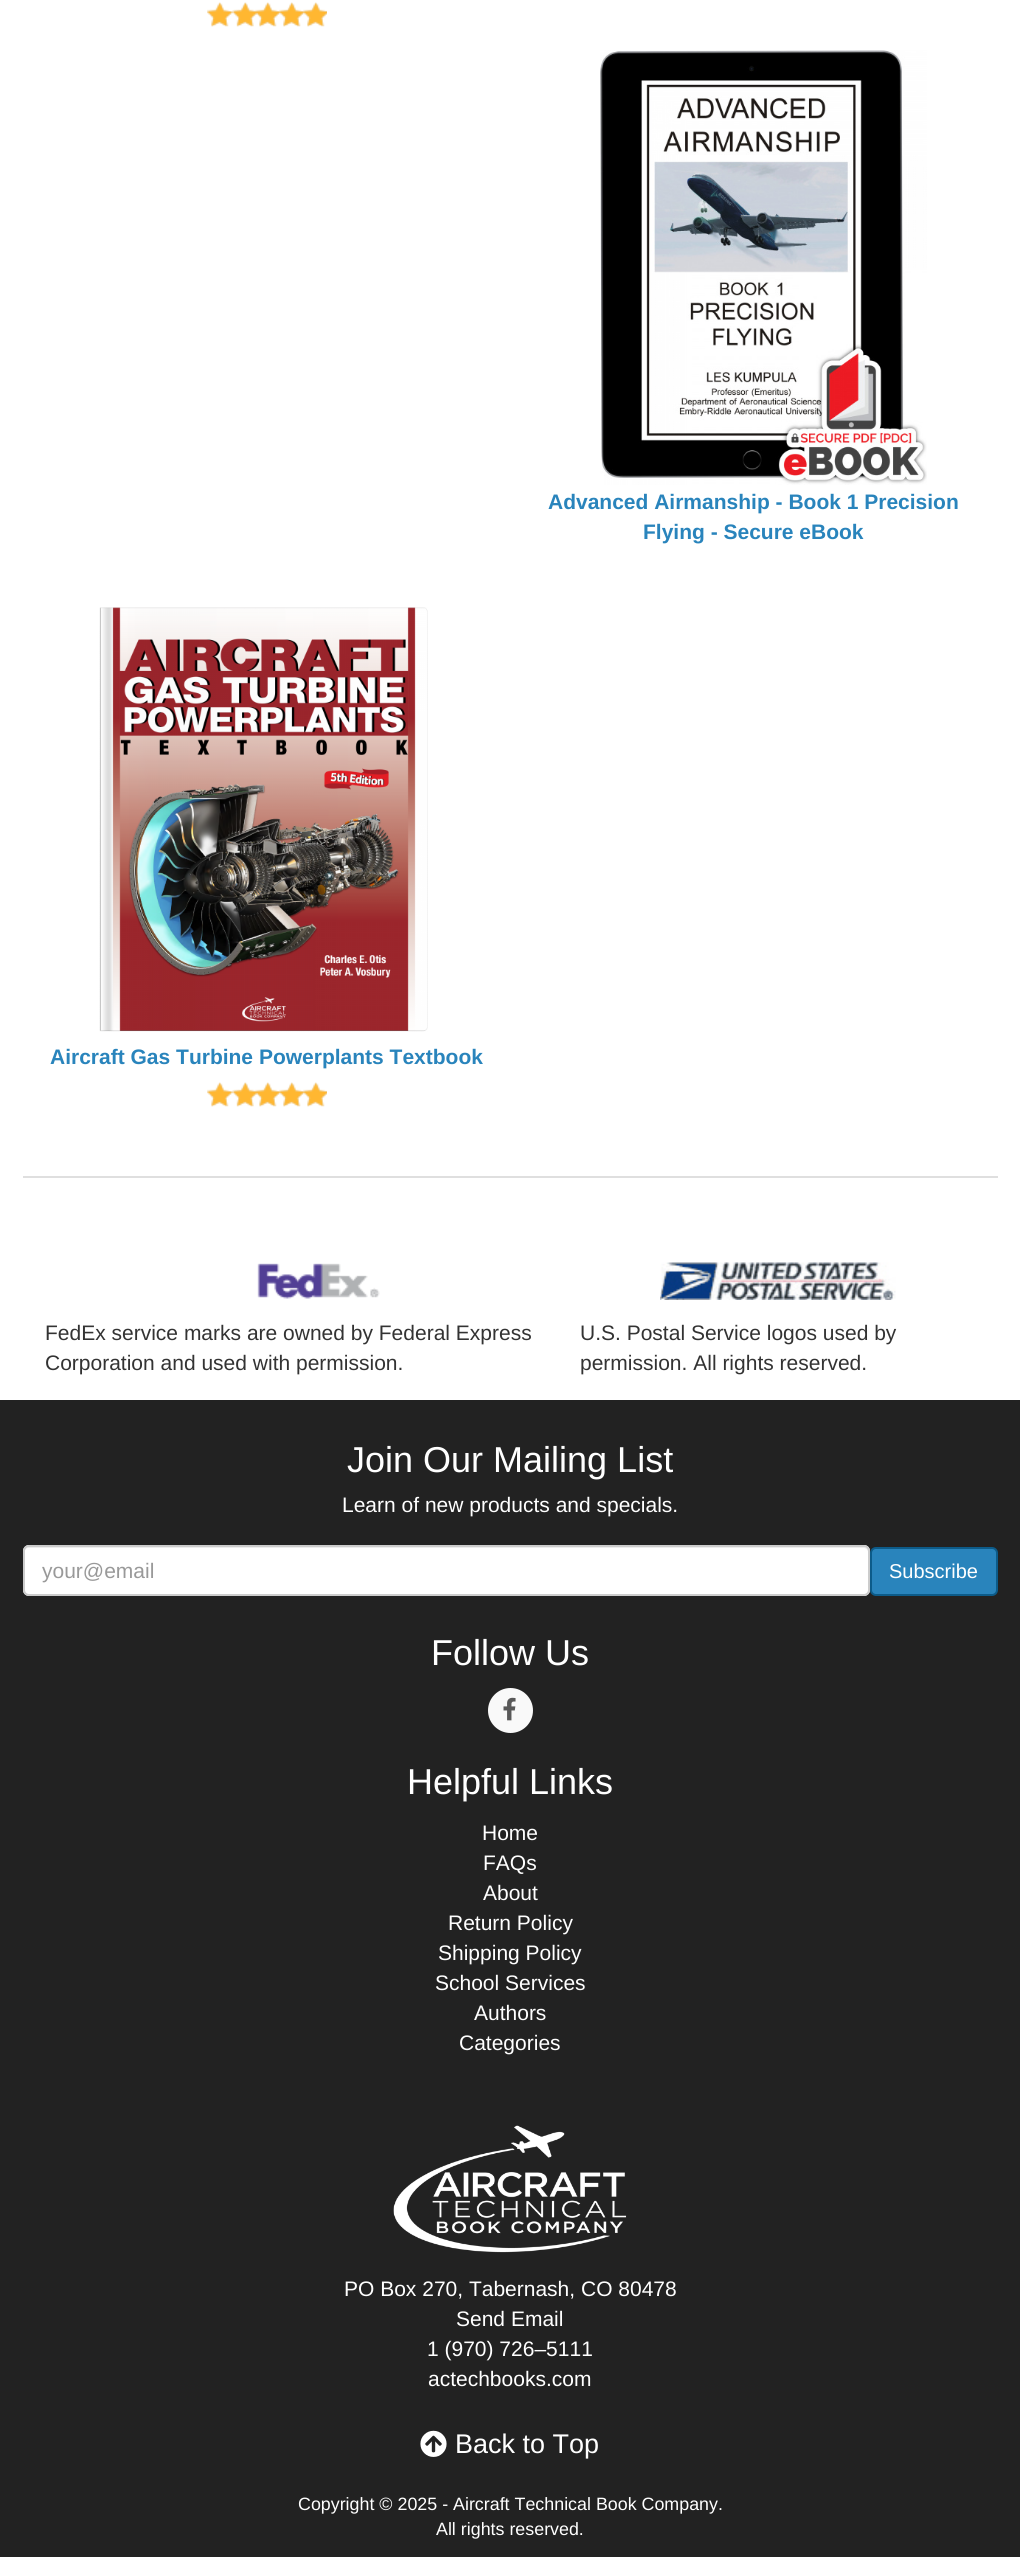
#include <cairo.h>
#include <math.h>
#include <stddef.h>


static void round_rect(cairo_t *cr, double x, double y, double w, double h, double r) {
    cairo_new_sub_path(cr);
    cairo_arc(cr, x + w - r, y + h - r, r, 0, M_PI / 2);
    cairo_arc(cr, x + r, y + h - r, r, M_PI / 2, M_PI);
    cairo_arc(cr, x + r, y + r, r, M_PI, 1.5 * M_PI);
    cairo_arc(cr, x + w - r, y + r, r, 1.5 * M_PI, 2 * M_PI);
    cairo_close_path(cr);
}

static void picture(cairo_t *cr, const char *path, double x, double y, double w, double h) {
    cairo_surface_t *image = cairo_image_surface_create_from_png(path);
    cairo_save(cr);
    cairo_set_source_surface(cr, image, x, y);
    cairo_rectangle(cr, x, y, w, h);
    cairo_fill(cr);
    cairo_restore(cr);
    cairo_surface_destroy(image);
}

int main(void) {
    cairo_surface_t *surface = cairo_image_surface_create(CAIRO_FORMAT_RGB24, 1020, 2557);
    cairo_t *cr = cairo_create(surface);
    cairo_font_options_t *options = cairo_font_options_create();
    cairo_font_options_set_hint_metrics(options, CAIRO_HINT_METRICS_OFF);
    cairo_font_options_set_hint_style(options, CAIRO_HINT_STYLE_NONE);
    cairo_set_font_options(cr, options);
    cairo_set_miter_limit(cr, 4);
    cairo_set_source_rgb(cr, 1, 1, 1);
    cairo_paint(cr);
    cairo_set_source_rgb(cr, 0.875, 0.875, 0.875);
    cairo_rectangle(cr, 23, 1176, 975, 2);
    cairo_fill(cr);
    picture(cr, "img1.png", 207, 2, 120, 25);
    picture(cr, "img2.png", 207, 2, 120, 25);
    picture(cr, "img3.png", 600, 50, 327, 435);
    cairo_select_font_face(cr, "Liberation Sans", CAIRO_FONT_SLANT_NORMAL, CAIRO_FONT_WEIGHT_BOLD);
    cairo_set_font_size(cr, 21);
    cairo_set_source_rgb(cr, 0.161, 0.518, 0.737);
    cairo_move_to(cr, 548, 509);
    cairo_show_text(cr, "Advanced Airmanship - Book 1 Precision");
    cairo_move_to(cr, 643, 539);
    cairo_show_text(cr, "Flying - Secure eBook");
    picture(cr, "img4.png", 99, 607, 329, 425);
    cairo_move_to(cr, 50, 1064);
    cairo_show_text(cr, "Aircraft Gas Turbine Powerplants Textbook");
    picture(cr, "img1.png", 207, 1082, 120, 25);
    picture(cr, "img2.png", 207, 1082, 120, 25);
    picture(cr, "img5.png", 257, 1263, 123, 36);
    picture(cr, "img6.png", 660, 1262, 236, 38);
    cairo_select_font_face(cr, "Liberation Sans", CAIRO_FONT_SLANT_NORMAL, CAIRO_FONT_WEIGHT_NORMAL);
    cairo_set_source_rgb(cr, 0.2, 0.2, 0.2);
    cairo_move_to(cr, 45, 1340);
    cairo_show_text(cr, "FedEx service marks are owned by Federal Express");
    cairo_move_to(cr, 45, 1370);
    cairo_show_text(cr, "Corporation and used with permission.");
    cairo_move_to(cr, 580, 1340);
    cairo_show_text(cr, "U.S. Postal Service logos used by");
    cairo_move_to(cr, 580, 1370);
    cairo_show_text(cr, "permission. All rights reserved.");
    cairo_set_source_rgb(cr, 0.133, 0.133, 0.133);
    cairo_rectangle(cr, 0, 1400, 1020, 1157);
    cairo_fill(cr);
    cairo_set_font_size(cr, 36);
    cairo_set_source_rgb(cr, 1, 1, 1);
    cairo_move_to(cr, 347, 1472);
    cairo_show_text(cr, "Join Our Mailing List");
    cairo_set_font_size(cr, 21);
    cairo_move_to(cr, 342, 1512);
    cairo_show_text(cr, "Learn of new products and specials.");
    round_rect(cr, 23, 1545, 847, 51, 6);
    cairo_fill(cr);
    cairo_set_source_rgb(cr, 0.925, 0.925, 0.925);
    cairo_new_path(cr);
    cairo_move_to(cr, 28, 1548);
    cairo_line_to(cr, 864, 1548);
    cairo_curve_to(cr, 866, 1548, 868, 1550, 868, 1552);
    cairo_line_to(cr, 868, 1593);
    cairo_curve_to(cr, 869, 1592, 869, 1591, 869, 1590);
    cairo_line_to(cr, 869, 1552);
    cairo_curve_to(cr, 869, 1549, 867, 1547, 864, 1547);
    cairo_line_to(cr, 29, 1547);
    cairo_curve_to(cr, 26, 1547, 24, 1549, 24, 1552);
    cairo_curve_to(cr, 24, 1550, 26, 1548, 28, 1548);
    cairo_close_path(cr);
    cairo_fill(cr);
    round_rect(cr, 24, 1546, 845, 49, 5);
    cairo_set_source_rgb(cr, 0.8, 0.8, 0.8);
    cairo_stroke(cr);
    cairo_set_source_rgb(cr, 0.6, 0.6, 0.6);
    cairo_move_to(cr, 42, 1578);
    cairo_show_text(cr, "your@email");
    cairo_set_source_rgb(cr, 0.161, 0.518, 0.737);
    round_rect(cr, 871, 1548, 126, 47, 5);
    cairo_fill_preserve(cr);
    cairo_set_source_rgb(cr, 0.047, 0.357, 0.537);
    cairo_stroke(cr);
    cairo_set_font_size(cr, 20);
    cairo_set_source_rgb(cr, 1, 1, 1);
    cairo_move_to(cr, 889, 1578);
    cairo_show_text(cr, "Subscribe");
    cairo_set_font_size(cr, 36);
    cairo_move_to(cr, 431, 1665);
    cairo_show_text(cr, "Follow Us");
    cairo_set_source_rgb(cr, 0.976, 0.976, 0.976);
    cairo_new_path(cr);
    cairo_arc(cr, 510.5, 1710.5, 22.5, 0, 2 * M_PI);
    cairo_fill(cr);
    picture(cr, "img7.png", 503, 1697, 13, 24);
    cairo_set_source_rgb(cr, 1, 1, 1);
    cairo_move_to(cr, 407, 1794);
    cairo_show_text(cr, "Helpful Links");
    cairo_set_font_size(cr, 21);
    cairo_move_to(cr, 482, 1840);
    cairo_show_text(cr, "Home");
    cairo_move_to(cr, 483, 1870);
    cairo_show_text(cr, "FAQs");
    cairo_move_to(cr, 483, 1900);
    cairo_show_text(cr, "About");
    cairo_move_to(cr, 448, 1930);
    cairo_show_text(cr, "Return Policy");
    cairo_move_to(cr, 438, 1960);
    cairo_show_text(cr, "Shipping Policy");
    cairo_move_to(cr, 435, 1990);
    cairo_show_text(cr, "School Services");
    cairo_move_to(cr, 474, 2020);
    cairo_show_text(cr, "Authors");
    cairo_move_to(cr, 459, 2050);
    cairo_show_text(cr, "Categories");
    picture(cr, "img8.png", 393, 2125, 234, 128);
    cairo_move_to(cr, 344, 2296);
    cairo_show_text(cr, "PO Box 270, Tabernash, CO 80478");
    cairo_move_to(cr, 456, 2326);
    cairo_show_text(cr, "Send Email");
    cairo_move_to(cr, 427, 2356);
    cairo_show_text(cr, "1 (970) 726–5111");
    cairo_move_to(cr, 428, 2386);
    cairo_show_text(cr, "actechbooks.com");
    picture(cr, "img9.png", 420, 2430, 27, 27);
    cairo_set_font_size(cr, 27);
    cairo_move_to(cr, 455, 2453);
    cairo_show_text(cr, "Back to Top");
    cairo_set_font_size(cr, 17.85);
    cairo_move_to(cr, 298, 2510);
    cairo_show_text(cr, "Copyright © 2025 - Aircraft Technical Book Company.");
    cairo_move_to(cr, 436, 2535);
    cairo_show_text(cr, "All rights reserved.");
    cairo_surface_write_to_png(surface, "page.png");
    cairo_font_options_destroy(options);
    cairo_destroy(cr);
    cairo_surface_destroy(surface);
    return 0;
}
